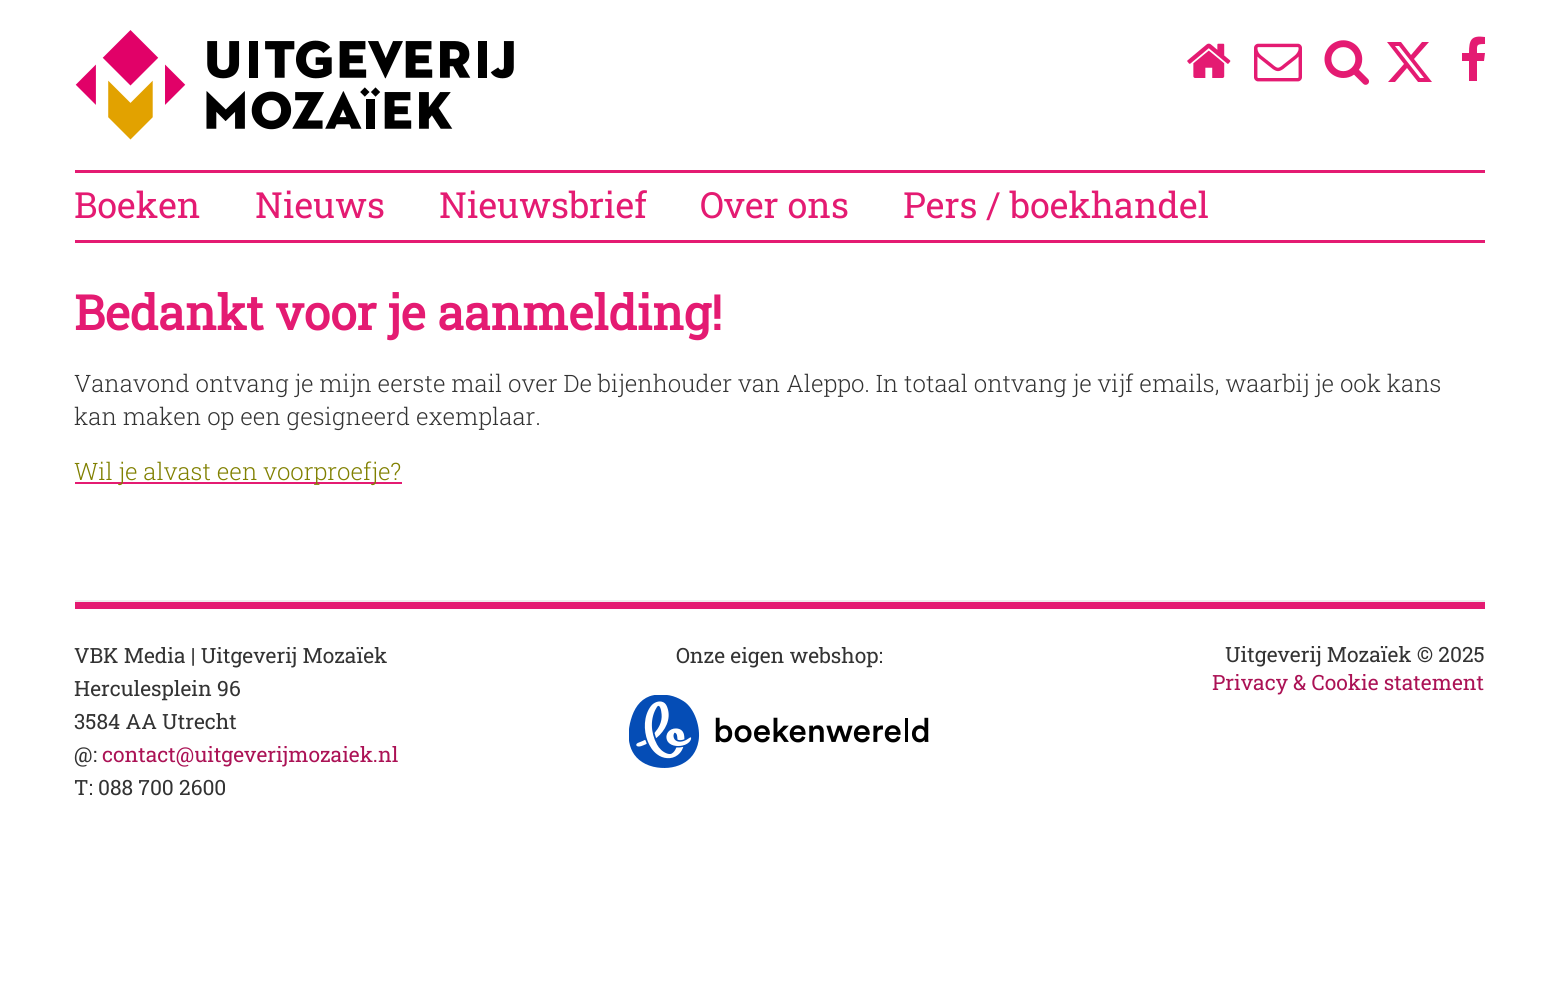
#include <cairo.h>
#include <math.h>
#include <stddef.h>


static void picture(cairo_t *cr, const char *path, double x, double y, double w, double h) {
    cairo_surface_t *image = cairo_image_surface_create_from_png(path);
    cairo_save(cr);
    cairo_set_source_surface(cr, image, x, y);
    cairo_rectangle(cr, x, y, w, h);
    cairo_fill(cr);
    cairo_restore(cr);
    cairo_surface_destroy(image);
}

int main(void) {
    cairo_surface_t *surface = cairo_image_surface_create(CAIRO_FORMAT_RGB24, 1558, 984);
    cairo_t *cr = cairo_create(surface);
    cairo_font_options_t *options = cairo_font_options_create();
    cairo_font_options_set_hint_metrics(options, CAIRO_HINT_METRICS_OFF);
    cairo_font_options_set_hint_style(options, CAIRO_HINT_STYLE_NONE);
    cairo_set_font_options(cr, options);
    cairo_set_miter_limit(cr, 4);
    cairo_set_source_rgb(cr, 1, 1, 1);
    cairo_paint(cr);
    picture(cr, "img1.png", 75, 30, 439, 110);
    picture(cr, "img2.png", 1187, 43, 44, 35);
    picture(cr, "img3.png", 1254, 43, 48, 39);
    picture(cr, "img4.png", 1324, 40, 46, 45);
    cairo_set_source_rgb(cr, 0.894, 0.106, 0.447);
    cairo_new_path(cr);
    cairo_move_to(cr, 1422, 42);
    cairo_line_to(cr, 1429, 42);
    cairo_line_to(cr, 1414, 59);
    cairo_line_to(cr, 1432, 82);
    cairo_line_to(cr, 1418, 82);
    cairo_line_to(cr, 1407, 68);
    cairo_line_to(cr, 1395, 82);
    cairo_line_to(cr, 1388, 82);
    cairo_line_to(cr, 1404, 64);
    cairo_line_to(cr, 1387, 42);
    cairo_line_to(cr, 1401, 42);
    cairo_line_to(cr, 1411, 55);
    cairo_close_path(cr);
    cairo_move_to(cr, 1420, 78);
    cairo_line_to(cr, 1424, 78);
    cairo_line_to(cr, 1399, 46);
    cairo_line_to(cr, 1395, 46);
    cairo_close_path(cr);
    cairo_fill(cr);
    cairo_new_path(cr);
    cairo_move_to(cr, 1485, 37);
    cairo_line_to(cr, 1485, 44);
    cairo_curve_to(cr, 1476, 44, 1477, 45, 1477, 53);
    cairo_line_to(cr, 1485, 53);
    cairo_line_to(cr, 1484, 61);
    cairo_line_to(cr, 1477, 61);
    cairo_line_to(cr, 1477, 81);
    cairo_line_to(cr, 1469, 81);
    cairo_line_to(cr, 1469, 61);
    cairo_line_to(cr, 1462, 61);
    cairo_line_to(cr, 1462, 53);
    cairo_line_to(cr, 1469, 53);
    cairo_curve_to(cr, 1469, 40, 1471, 35, 1485, 37);
    cairo_close_path(cr);
    cairo_fill(cr);
    cairo_rectangle(cr, 75, 170, 1410, 3);
    cairo_fill(cr);
    cairo_rectangle(cr, 75, 240, 1410, 3);
    cairo_fill(cr);
    cairo_select_font_face(cr, "Roboto Slab", CAIRO_FONT_SLANT_NORMAL, CAIRO_FONT_WEIGHT_NORMAL);
    cairo_set_font_size(cr, 36);
    cairo_move_to(cr, 74, 218);
    cairo_show_text(cr, "Boeken");
    cairo_move_to(cr, 255, 218);
    cairo_show_text(cr, "Nieuws");
    cairo_move_to(cr, 439, 218);
    cairo_show_text(cr, "Nieuwsbrief");
    cairo_move_to(cr, 700, 218);
    cairo_show_text(cr, "Over ons");
    cairo_move_to(cr, 903, 218);
    cairo_show_text(cr, "Pers / boekhandel");
    cairo_select_font_face(cr, "Roboto Slab", CAIRO_FONT_SLANT_NORMAL, CAIRO_FONT_WEIGHT_BOLD);
    cairo_set_font_size(cr, 48);
    cairo_move_to(cr, 74, 330);
    cairo_show_text(cr, "Bedankt voor je aanmelding!");
    cairo_select_font_face(cr, "Roboto Slab Light", CAIRO_FONT_SLANT_NORMAL, CAIRO_FONT_WEIGHT_NORMAL);
    cairo_set_font_size(cr, 24);
    cairo_set_source_rgb(cr, 0.2, 0.2, 0.2);
    cairo_move_to(cr, 74, 392);
    cairo_show_text(cr, "Vanavond ontvang je mijn eerste mail over De bijenhouder van Aleppo. In totaal ontvang je vijf emails, waarbij je ook kans");
    cairo_move_to(cr, 74, 425);
    cairo_show_text(cr, "kan maken op een gesigneerd exemplaar.");
    cairo_set_source_rgb(cr, 0.894, 0.106, 0.447);
    cairo_rectangle(cr, 75, 482, 327, 2);
    cairo_fill(cr);
    cairo_set_source_rgb(cr, 0.502, 0.502, 0);
    cairo_move_to(cr, 74, 480);
    cairo_show_text(cr, "Wil je alvast een voorproefje?");
    cairo_set_source_rgb(cr, 0.933, 0.933, 0.933);
    cairo_rectangle(cr, 75, 600, 1410, 2);
    cairo_fill(cr);
    cairo_set_source_rgb(cr, 0.894, 0.106, 0.447);
    cairo_rectangle(cr, 75, 602, 1410, 7);
    cairo_fill(cr);
    cairo_select_font_face(cr, "Roboto Slab", CAIRO_FONT_SLANT_NORMAL, CAIRO_FONT_WEIGHT_NORMAL);
    cairo_set_font_size(cr, 21);
    cairo_set_source_rgb(cr, 0.2, 0.2, 0.2);
    cairo_move_to(cr, 74, 663);
    cairo_show_text(cr, "VBK Media | Uitgeverij Mozaïek");
    cairo_move_to(cr, 74, 696);
    cairo_show_text(cr, "Herculesplein 96");
    cairo_move_to(cr, 74, 729);
    cairo_show_text(cr, "3584 AA Utrecht");
    cairo_move_to(cr, 74, 762);
    cairo_show_text(cr, "@:");
    cairo_set_source_rgb(cr, 0.671, 0.071, 0.333);
    cairo_move_to(cr, 102, 762);
    cairo_show_text(cr, "contact@uitgeverijmozaiek.nl");
    cairo_set_source_rgb(cr, 0.2, 0.2, 0.2);
    cairo_move_to(cr, 74, 795);
    cairo_show_text(cr, "T: 088 700 2600");
    cairo_move_to(cr, 676, 663);
    cairo_show_text(cr, "Onze eigen webshop:");
    picture(cr, "img5.png", 629, 695, 300, 73);
    cairo_move_to(cr, 1225, 662);
    cairo_show_text(cr, "Uitgeverij Mozaïek © 2025");
    cairo_set_source_rgb(cr, 0.671, 0.071, 0.333);
    cairo_move_to(cr, 1212, 690);
    cairo_show_text(cr, "Privacy & Cookie statement");
    cairo_surface_write_to_png(surface, "page.png");
    cairo_font_options_destroy(options);
    cairo_destroy(cr);
    cairo_surface_destroy(surface);
    return 0;
}
